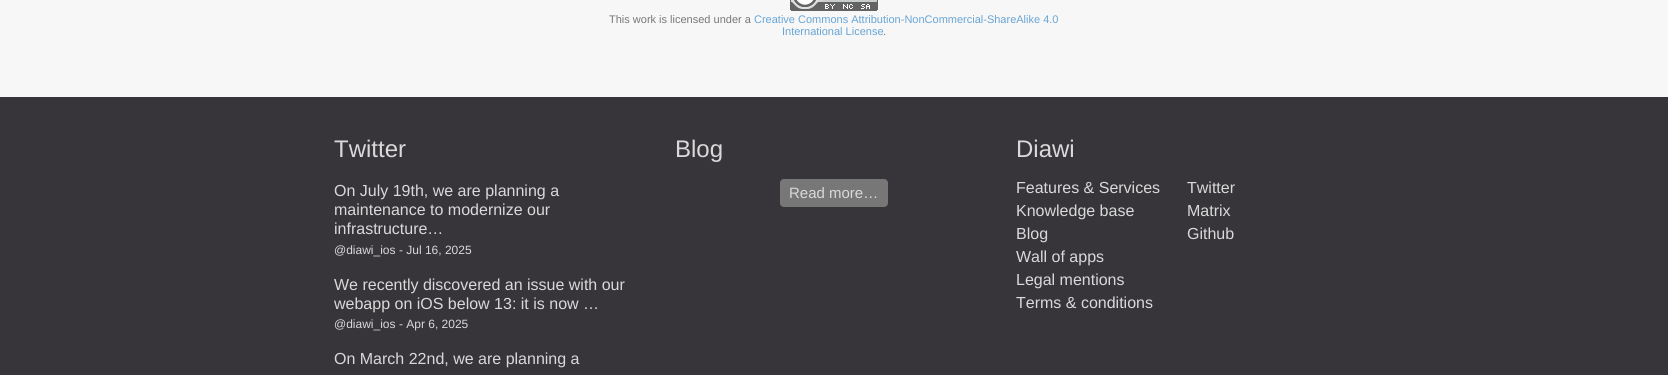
#include <cairo.h>
#include <math.h>
#include <stddef.h>


static void round_rect(cairo_t *cr, double x, double y, double w, double h, double r) {
    cairo_new_sub_path(cr);
    cairo_arc(cr, x + w - r, y + h - r, r, 0, M_PI / 2);
    cairo_arc(cr, x + r, y + h - r, r, M_PI / 2, M_PI);
    cairo_arc(cr, x + r, y + r, r, M_PI, 1.5 * M_PI);
    cairo_arc(cr, x + w - r, y + r, r, 1.5 * M_PI, 2 * M_PI);
    cairo_close_path(cr);
}

static void picture(cairo_t *cr, const char *path, double x, double y, double w, double h) {
    cairo_surface_t *image = cairo_image_surface_create_from_png(path);
    cairo_save(cr);
    cairo_set_source_surface(cr, image, x, y);
    cairo_rectangle(cr, x, y, w, h);
    cairo_fill(cr);
    cairo_restore(cr);
    cairo_surface_destroy(image);
}

int main(void) {
    cairo_surface_t *surface = cairo_image_surface_create(CAIRO_FORMAT_RGB24, 1668, 375);
    cairo_t *cr = cairo_create(surface);
    cairo_font_options_t *options = cairo_font_options_create();
    cairo_font_options_set_hint_metrics(options, CAIRO_HINT_METRICS_OFF);
    cairo_font_options_set_hint_style(options, CAIRO_HINT_STYLE_NONE);
    cairo_set_font_options(cr, options);
    cairo_set_miter_limit(cr, 4);
    cairo_set_source_rgb(cr, 0.965, 0.965, 0.965);
    cairo_paint(cr);
    picture(cr, "img1.png", 790, 0, 88, 11);
    cairo_select_font_face(cr, "Liberation Sans", CAIRO_FONT_SLANT_NORMAL, CAIRO_FONT_WEIGHT_NORMAL);
    cairo_set_font_size(cr, 11);
    cairo_set_source_rgb(cr, 0.467, 0.467, 0.467);
    cairo_move_to(cr, 609, 23);
    cairo_show_text(cr, "This work is licensed under a");
    cairo_set_source_rgb(cr, 0.408, 0.643, 0.831);
    cairo_move_to(cr, 754, 23);
    cairo_show_text(cr, "Creative Commons Attribution-NonCommercial-ShareAlike 4.0");
    cairo_move_to(cr, 782, 35);
    cairo_show_text(cr, "International License");
    cairo_set_source_rgb(cr, 0.467, 0.467, 0.467);
    cairo_move_to(cr, 883, 35);
    cairo_show_text(cr, ".");
    cairo_set_source_rgb(cr, 0.216, 0.208, 0.227);
    cairo_rectangle(cr, 0, 97, 1668, 278);
    cairo_fill(cr);
    cairo_set_font_size(cr, 24);
    cairo_set_source_rgb(cr, 0.851, 0.851, 0.851);
    cairo_move_to(cr, 334, 157);
    cairo_show_text(cr, "Twitter");
    cairo_set_font_size(cr, 16);
    cairo_move_to(cr, 334, 196);
    cairo_show_text(cr, "On July 19th, we are planning a");
    cairo_move_to(cr, 334, 215);
    cairo_show_text(cr, "maintenance to modernize our");
    cairo_move_to(cr, 334, 234);
    cairo_show_text(cr, "infrastructure…");
    cairo_set_font_size(cr, 12);
    cairo_move_to(cr, 334, 254);
    cairo_show_text(cr, "@diawi_ios - Jul 16, 2025");
    cairo_set_font_size(cr, 16);
    cairo_move_to(cr, 334, 290);
    cairo_show_text(cr, "We recently discovered an issue with our");
    cairo_move_to(cr, 334, 309);
    cairo_show_text(cr, "webapp on iOS below 13: it is now …");
    cairo_set_font_size(cr, 12);
    cairo_move_to(cr, 334, 328);
    cairo_show_text(cr, "@diawi_ios - Apr 6, 2025");
    cairo_set_font_size(cr, 16);
    cairo_move_to(cr, 334, 364);
    cairo_show_text(cr, "On March 22nd, we are planning a");
    cairo_set_font_size(cr, 24);
    cairo_move_to(cr, 675, 157);
    cairo_show_text(cr, "Blog");
    cairo_set_source_rgb(cr, 0.467, 0.467, 0.467);
    round_rect(cr, 780, 179, 108, 28, 4);
    cairo_fill(cr);
    cairo_set_font_size(cr, 15);
    cairo_set_source_rgb(cr, 0.851, 0.851, 0.851);
    cairo_move_to(cr, 789, 198);
    cairo_show_text(cr, "Read more…");
    cairo_set_font_size(cr, 24);
    cairo_move_to(cr, 1016, 157);
    cairo_show_text(cr, "Diawi");
    cairo_set_font_size(cr, 16);
    cairo_move_to(cr, 1016, 193);
    cairo_show_text(cr, "Features & Services");
    cairo_move_to(cr, 1016, 216);
    cairo_show_text(cr, "Knowledge base");
    cairo_move_to(cr, 1016, 239);
    cairo_show_text(cr, "Blog");
    cairo_move_to(cr, 1016, 262);
    cairo_show_text(cr, "Wall of apps");
    cairo_move_to(cr, 1016, 285);
    cairo_show_text(cr, "Legal mentions");
    cairo_move_to(cr, 1016, 308);
    cairo_show_text(cr, "Terms & conditions");
    cairo_move_to(cr, 1187, 193);
    cairo_show_text(cr, "Twitter");
    cairo_move_to(cr, 1187, 216);
    cairo_show_text(cr, "Matrix");
    cairo_move_to(cr, 1187, 239);
    cairo_show_text(cr, "Github");
    cairo_surface_write_to_png(surface, "page.png");
    cairo_font_options_destroy(options);
    cairo_destroy(cr);
    cairo_surface_destroy(surface);
    return 0;
}
